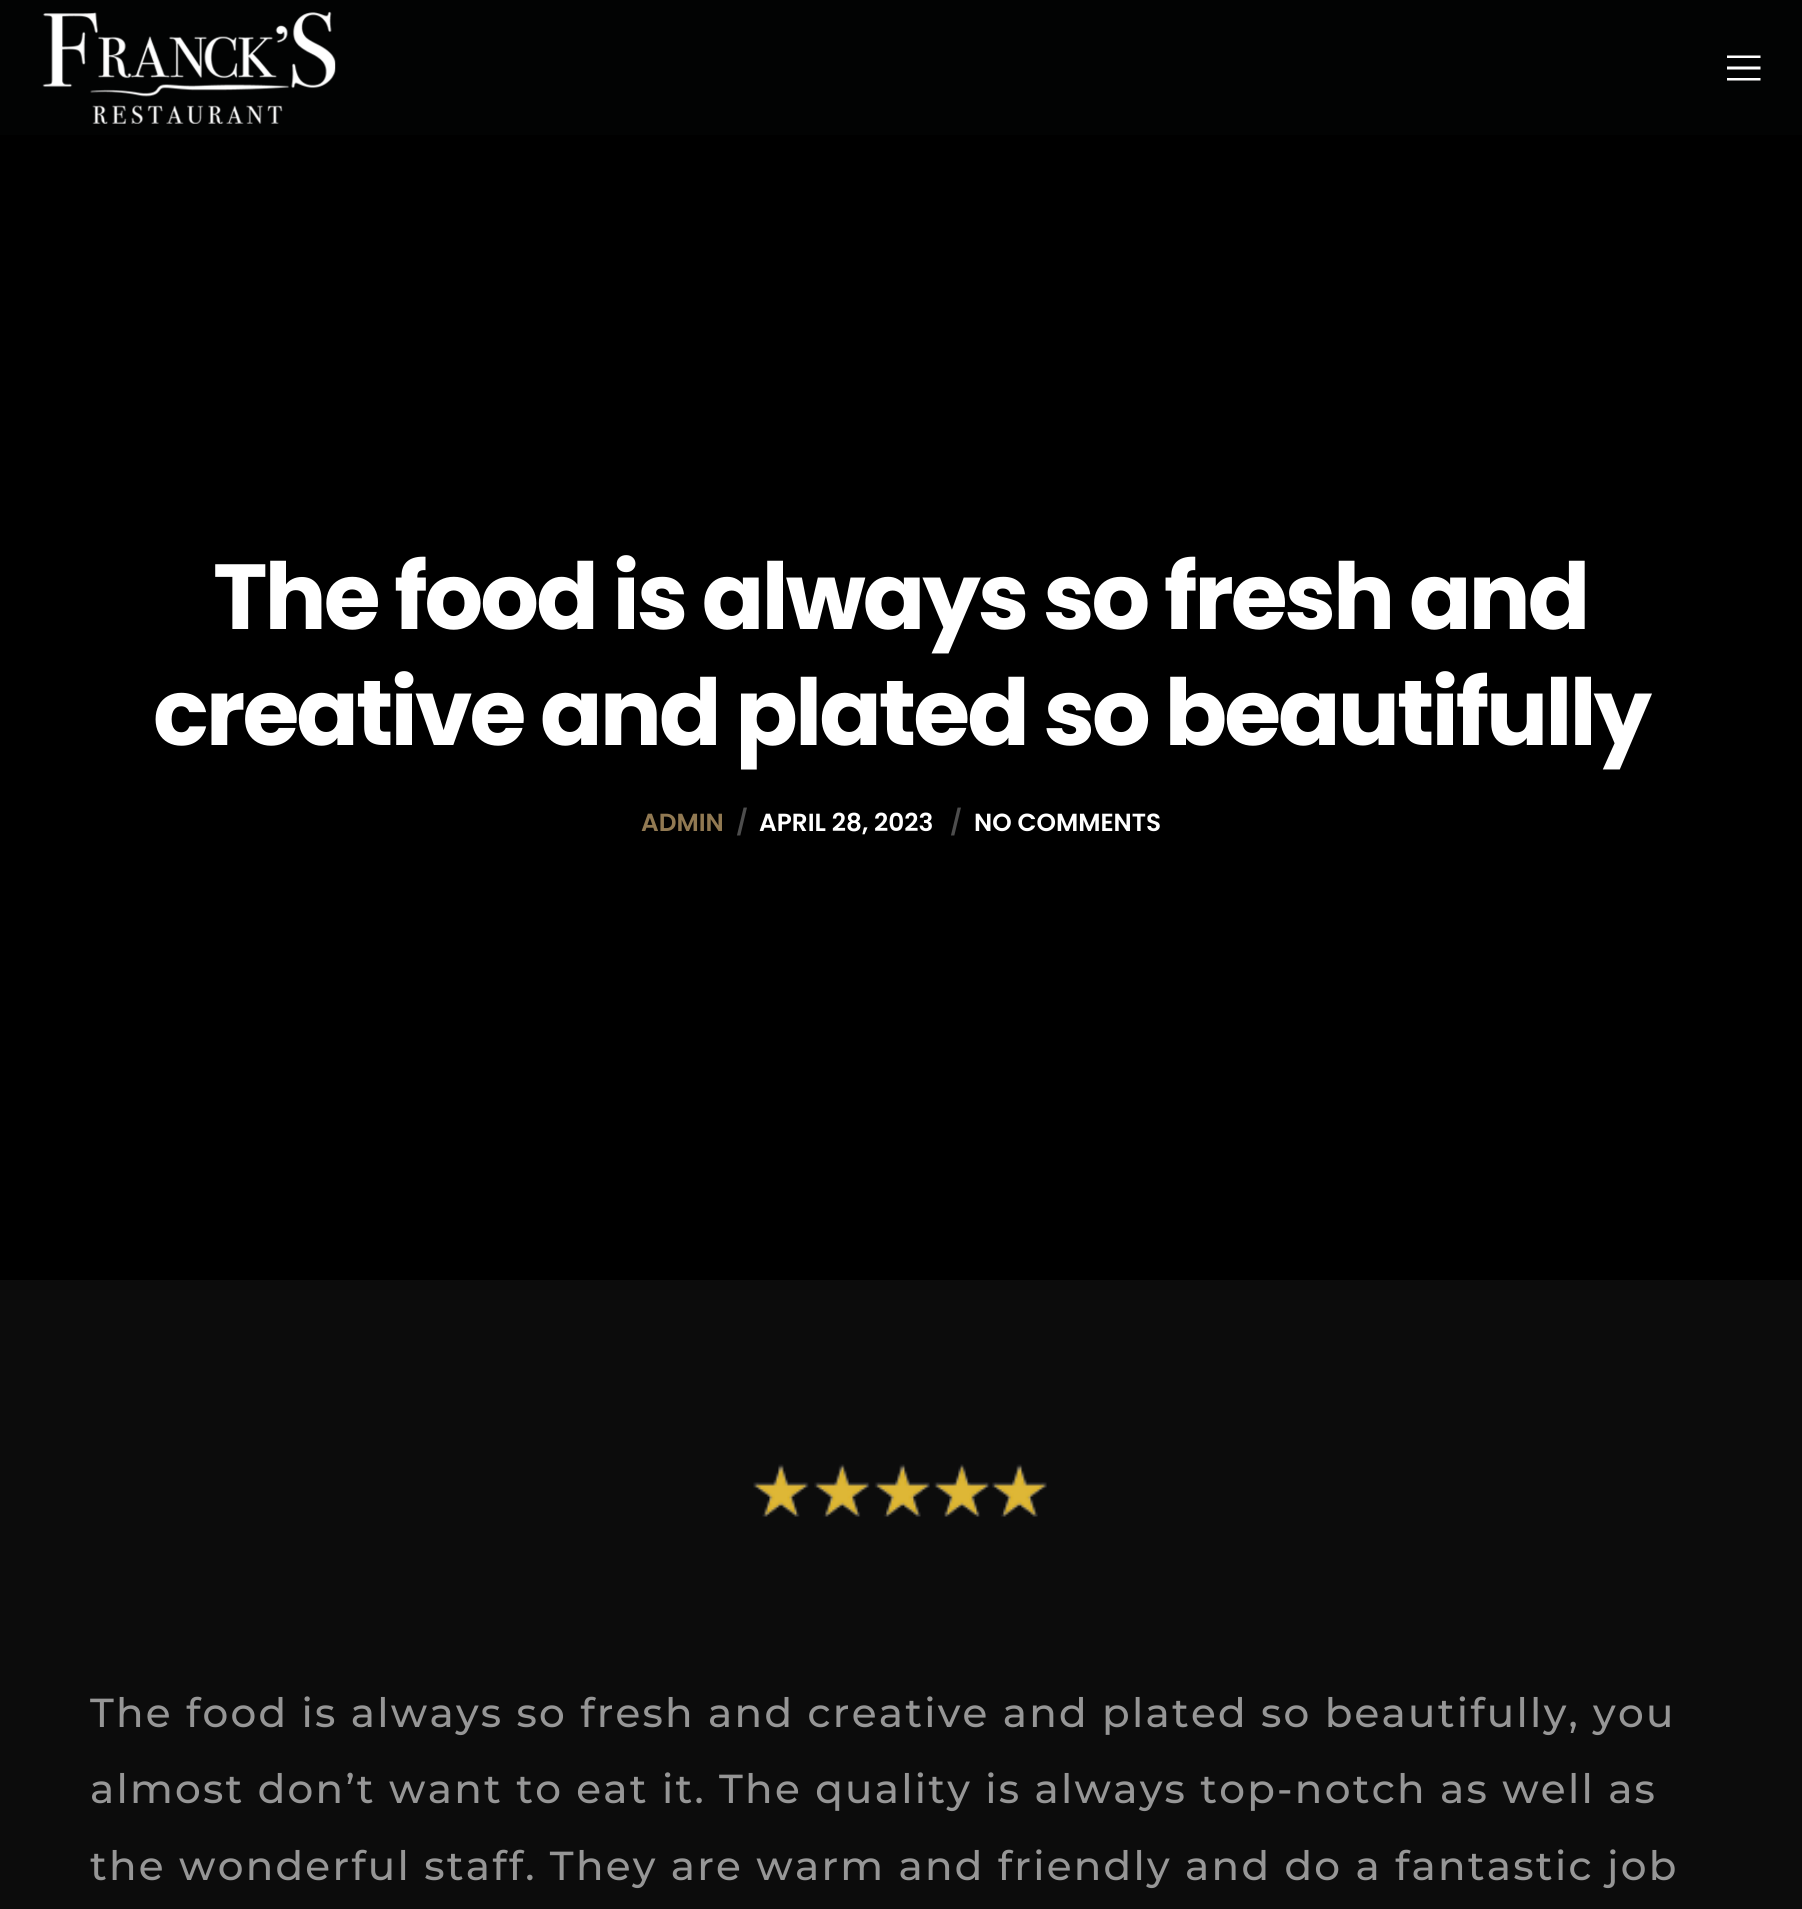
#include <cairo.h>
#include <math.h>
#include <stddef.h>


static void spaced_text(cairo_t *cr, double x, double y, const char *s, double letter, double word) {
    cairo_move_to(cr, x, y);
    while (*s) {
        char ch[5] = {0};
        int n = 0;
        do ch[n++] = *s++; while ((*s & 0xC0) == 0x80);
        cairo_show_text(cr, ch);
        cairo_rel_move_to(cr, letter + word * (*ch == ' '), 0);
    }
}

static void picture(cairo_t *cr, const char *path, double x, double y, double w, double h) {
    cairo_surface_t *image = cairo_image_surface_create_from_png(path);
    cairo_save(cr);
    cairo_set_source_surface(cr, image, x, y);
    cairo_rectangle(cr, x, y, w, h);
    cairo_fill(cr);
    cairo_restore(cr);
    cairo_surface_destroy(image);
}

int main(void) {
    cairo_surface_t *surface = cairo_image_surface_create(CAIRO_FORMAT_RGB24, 1802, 1909);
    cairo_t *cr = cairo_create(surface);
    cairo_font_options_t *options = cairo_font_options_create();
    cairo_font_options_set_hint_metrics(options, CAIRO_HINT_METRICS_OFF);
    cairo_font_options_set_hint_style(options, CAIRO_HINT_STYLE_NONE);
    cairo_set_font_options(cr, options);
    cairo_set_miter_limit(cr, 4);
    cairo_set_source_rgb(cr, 0, 0, 0);
    cairo_paint(cr);
    cairo_set_source_rgb(cr, 0.008, 0.012, 0.012);
    cairo_rectangle(cr, 0, 0, 1802, 135);
    cairo_fill(cr);
    picture(cr, "img1.png", 42, 11, 294, 113);
    cairo_set_source_rgb(cr, 1, 1, 1);
    cairo_new_path(cr);
    cairo_move_to(cr, 1727, 66.5);
    cairo_line_to(cr, 1760.5, 66.5);
    cairo_line_to(cr, 1760.5, 69.5);
    cairo_line_to(cr, 1727, 69.5);
    cairo_close_path(cr);
    cairo_move_to(cr, 1727, 55.5);
    cairo_line_to(cr, 1760.5, 55.5);
    cairo_line_to(cr, 1760.5, 58);
    cairo_line_to(cr, 1727, 58);
    cairo_close_path(cr);
    cairo_move_to(cr, 1727, 78);
    cairo_line_to(cr, 1760.5, 78);
    cairo_line_to(cr, 1760.5, 80.5);
    cairo_line_to(cr, 1727, 80.5);
    cairo_close_path(cr);
    cairo_fill(cr);
    cairo_select_font_face(cr, "Poppins", CAIRO_FONT_SLANT_NORMAL, CAIRO_FONT_WEIGHT_BOLD);
    cairo_set_font_size(cr, 92.25);
    spaced_text(cr, 213, 629, "The food is always so fresh and", -2.95, 0);
    spaced_text(cr, 153, 745, "creative and plated so beautifully", -2.95, 0);
    cairo_select_font_face(cr, "Poppins SemiBold", CAIRO_FONT_SLANT_NORMAL, CAIRO_FONT_WEIGHT_NORMAL);
    cairo_set_font_size(cr, 24.75);
    cairo_set_source_rgb(cr, 0.569, 0.475, 0.322);
    cairo_move_to(cr, 641, 831);
    cairo_show_text(cr, "ADMIN");
    cairo_set_source_rgb(cr, 0.302, 0.302, 0.302);
    cairo_move_to(cr, 736, 831);
    cairo_show_text(cr, "/");
    cairo_set_source_rgb(cr, 1, 1, 1);
    cairo_move_to(cr, 759, 831);
    cairo_show_text(cr, "APRIL 28, 2023");
    cairo_set_source_rgb(cr, 0.302, 0.302, 0.302);
    cairo_move_to(cr, 950, 831);
    cairo_show_text(cr, "/");
    cairo_set_source_rgb(cr, 1, 1, 1);
    cairo_move_to(cr, 974, 831);
    cairo_show_text(cr, "NO COMMENTS");
    cairo_set_source_rgb(cr, 0.047, 0.047, 0.047);
    cairo_rectangle(cr, 0, 1280, 1802, 629);
    cairo_fill(cr);
    picture(cr, "img2.png", 753, 1464, 294, 53);
    cairo_select_font_face(cr, "Montserrat Medium", CAIRO_FONT_SLANT_NORMAL, CAIRO_FONT_WEIGHT_NORMAL);
    cairo_set_font_size(cr, 40.5);
    cairo_set_source_rgb(cr, 0.588, 0.588, 0.588);
    spaced_text(cr, 90, 1727, "The food is always so fresh and creative and plated so beautifully, you", 2.25, 0);
    spaced_text(cr, 90, 1803, "almost don’t want to eat it. The quality is always top-notch as well as", 2.25, 0);
    spaced_text(cr, 90, 1880, "the wonderful staff. They are warm and friendly and do a fantastic job", 2.25, 0);
    cairo_surface_write_to_png(surface, "page.png");
    cairo_font_options_destroy(options);
    cairo_destroy(cr);
    cairo_surface_destroy(surface);
    return 0;
}
